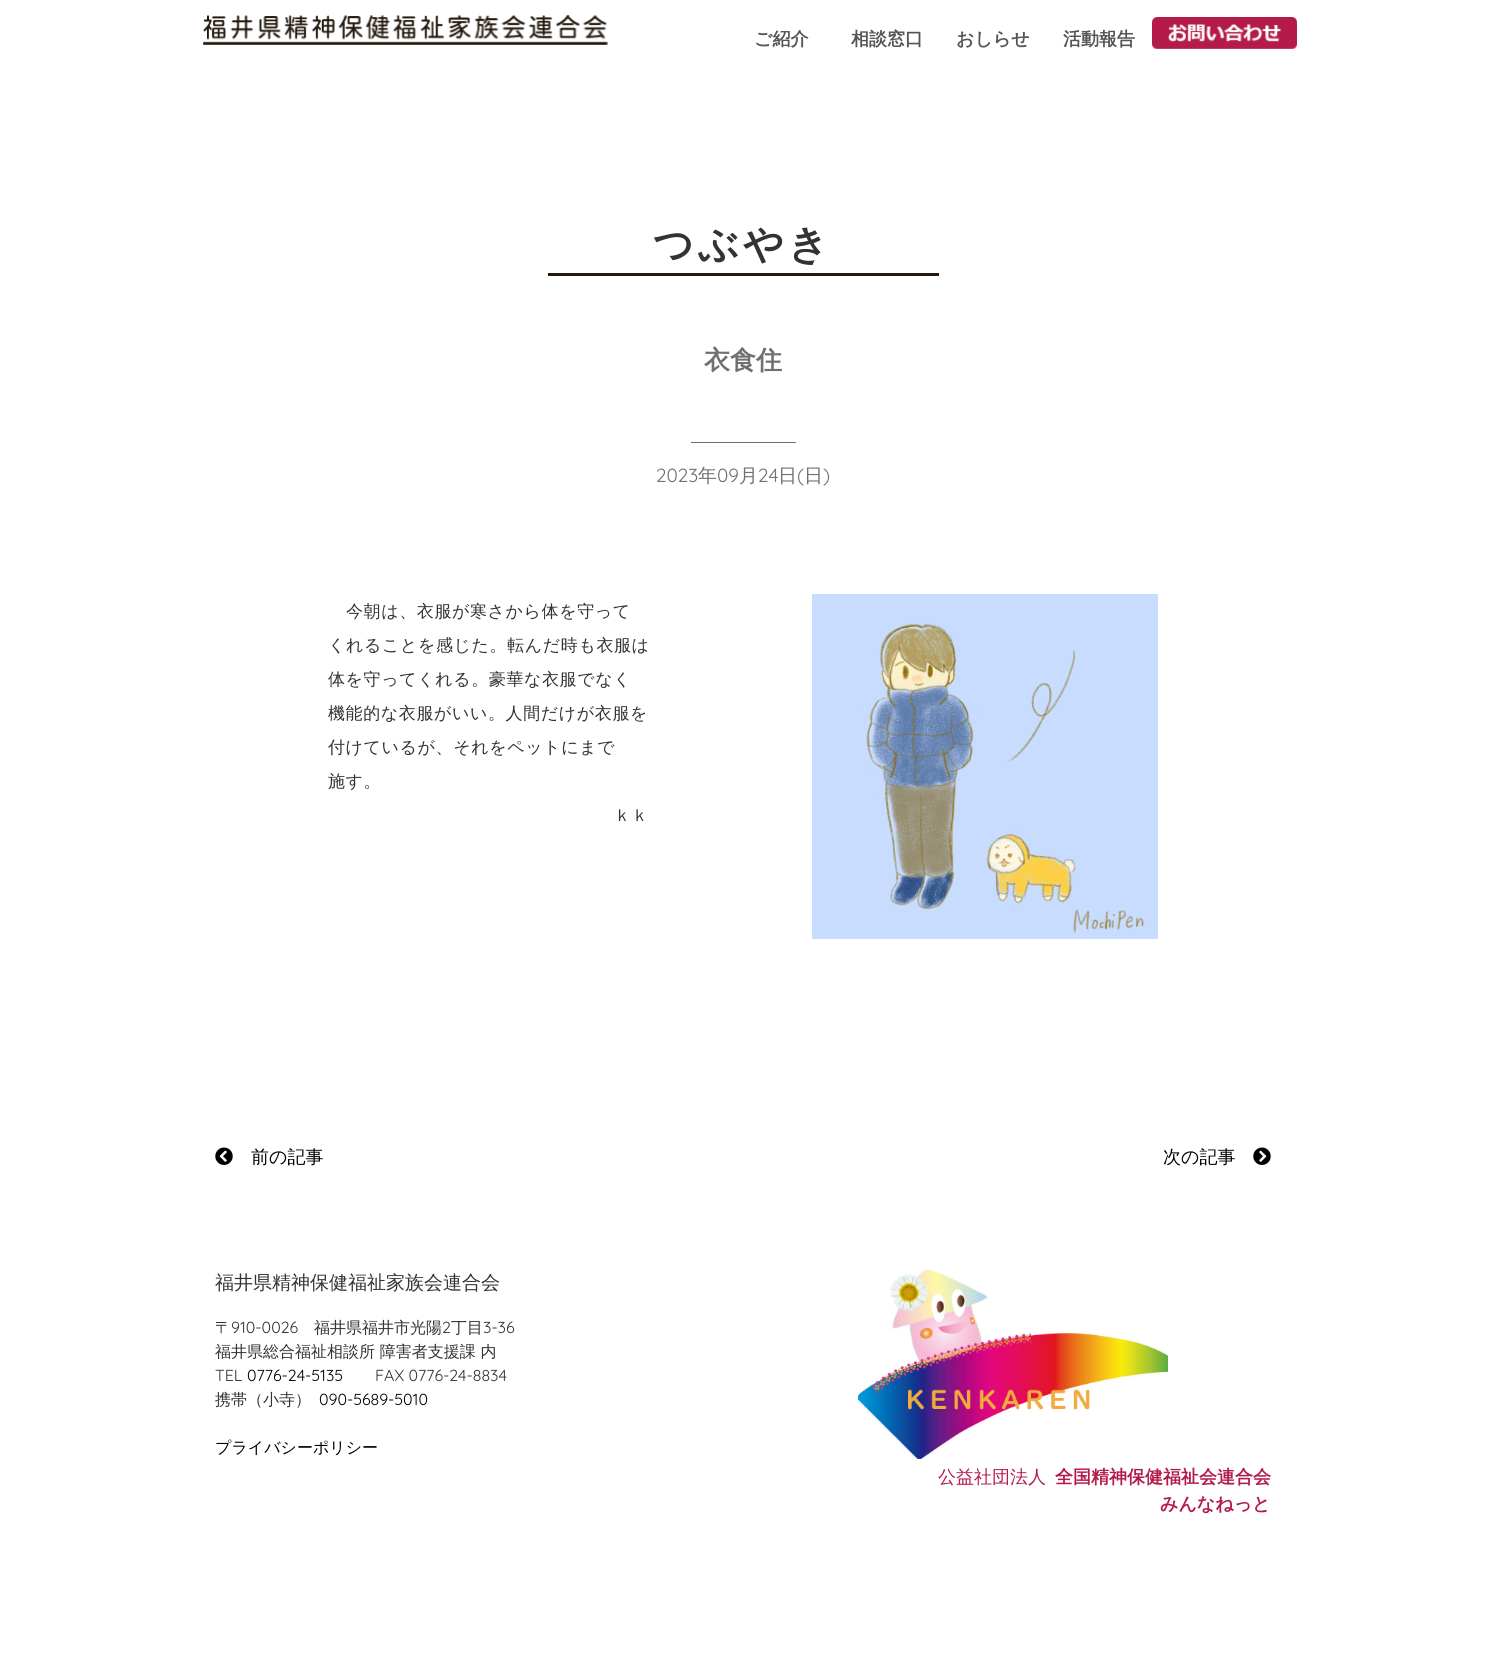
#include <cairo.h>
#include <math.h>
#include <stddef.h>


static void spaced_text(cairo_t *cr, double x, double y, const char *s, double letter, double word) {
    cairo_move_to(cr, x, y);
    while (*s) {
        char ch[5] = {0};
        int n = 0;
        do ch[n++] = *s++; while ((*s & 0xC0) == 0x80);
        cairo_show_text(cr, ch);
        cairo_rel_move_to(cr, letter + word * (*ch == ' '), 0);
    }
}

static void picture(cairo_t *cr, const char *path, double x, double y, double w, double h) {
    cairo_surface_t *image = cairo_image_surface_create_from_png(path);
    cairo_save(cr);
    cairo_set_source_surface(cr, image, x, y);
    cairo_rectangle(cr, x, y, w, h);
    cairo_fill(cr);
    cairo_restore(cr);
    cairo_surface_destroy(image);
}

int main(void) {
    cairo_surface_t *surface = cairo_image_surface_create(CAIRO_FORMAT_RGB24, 1486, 1661);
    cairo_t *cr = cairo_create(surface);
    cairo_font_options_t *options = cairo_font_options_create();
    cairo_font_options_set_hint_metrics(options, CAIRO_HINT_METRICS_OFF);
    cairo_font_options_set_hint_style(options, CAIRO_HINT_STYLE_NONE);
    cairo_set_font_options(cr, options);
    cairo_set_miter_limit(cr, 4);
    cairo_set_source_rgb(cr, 1, 1, 1);
    cairo_paint(cr);
    picture(cr, "img1.png", 203, 15, 405, 30);
    cairo_select_font_face(cr, "WenQuanYi Zen Hei", CAIRO_FONT_SLANT_NORMAL, CAIRO_FONT_WEIGHT_BOLD);
    cairo_set_font_size(cr, 18);
    cairo_set_source_rgb(cr, 0.333, 0.333, 0.333);
    cairo_move_to(cr, 754, 45);
    cairo_show_text(cr, "ご紹介");
    cairo_move_to(cr, 851, 45);
    cairo_show_text(cr, "相談窓口");
    cairo_move_to(cr, 956, 45);
    cairo_show_text(cr, "おしらせ");
    cairo_move_to(cr, 1063, 45);
    cairo_show_text(cr, "活動報告");
    picture(cr, "img2.png", 1152, 17, 145, 32);
    cairo_set_source_rgb(cr, 0.133, 0.094, 0.055);
    cairo_rectangle(cr, 548, 273, 391, 3);
    cairo_fill(cr);
    cairo_set_font_size(cr, 40);
    cairo_set_source_rgb(cr, 0.2, 0.2, 0.2);
    spaced_text(cr, 653, 258, "つぶやき", 4, 0);
    cairo_set_font_size(cr, 26);
    cairo_set_source_rgb(cr, 0.439, 0.439, 0.439);
    cairo_move_to(cr, 704, 369);
    cairo_show_text(cr, "衣食住");
    cairo_rectangle(cr, 691, 442, 105, 1);
    cairo_fill(cr);
    cairo_select_font_face(cr, "Quicksand", CAIRO_FONT_SLANT_NORMAL, CAIRO_FONT_WEIGHT_NORMAL);
    cairo_set_font_size(cr, 19);
    cairo_move_to(cr, 656, 482);
    cairo_show_text(cr, "2023");
    cairo_select_font_face(cr, "WenQuanYi Zen Hei Medium", CAIRO_FONT_SLANT_NORMAL, CAIRO_FONT_WEIGHT_NORMAL);
    cairo_move_to(cr, 698, 482);
    cairo_show_text(cr, "年");
    cairo_select_font_face(cr, "Quicksand", CAIRO_FONT_SLANT_NORMAL, CAIRO_FONT_WEIGHT_NORMAL);
    cairo_move_to(cr, 717, 482);
    cairo_show_text(cr, "09");
    cairo_select_font_face(cr, "WenQuanYi Zen Hei Medium", CAIRO_FONT_SLANT_NORMAL, CAIRO_FONT_WEIGHT_NORMAL);
    cairo_move_to(cr, 739, 482);
    cairo_show_text(cr, "月");
    cairo_select_font_face(cr, "Quicksand", CAIRO_FONT_SLANT_NORMAL, CAIRO_FONT_WEIGHT_NORMAL);
    cairo_move_to(cr, 758, 482);
    cairo_show_text(cr, "24");
    cairo_select_font_face(cr, "WenQuanYi Zen Hei Medium", CAIRO_FONT_SLANT_NORMAL, CAIRO_FONT_WEIGHT_NORMAL);
    cairo_move_to(cr, 778, 482);
    cairo_show_text(cr, "日");
    cairo_select_font_face(cr, "Quicksand", CAIRO_FONT_SLANT_NORMAL, CAIRO_FONT_WEIGHT_NORMAL);
    cairo_move_to(cr, 797, 482);
    cairo_show_text(cr, "(");
    cairo_select_font_face(cr, "WenQuanYi Zen Hei Medium", CAIRO_FONT_SLANT_NORMAL, CAIRO_FONT_WEIGHT_NORMAL);
    cairo_move_to(cr, 804, 482);
    cairo_show_text(cr, "日");
    cairo_select_font_face(cr, "Quicksand", CAIRO_FONT_SLANT_NORMAL, CAIRO_FONT_WEIGHT_NORMAL);
    cairo_move_to(cr, 823, 482);
    cairo_show_text(cr, ")");
    cairo_select_font_face(cr, "WenQuanYi Zen Hei Medium", CAIRO_FONT_SLANT_NORMAL, CAIRO_FONT_WEIGHT_NORMAL);
    cairo_set_font_size(cr, 17);
    cairo_set_source_rgb(cr, 0.2, 0.2, 0.2);
    spaced_text(cr, 346, 617, "今朝は、衣服が寒さから体を守って", 0.6, 0);
    spaced_text(cr, 328, 651, "くれることを感じた。転んだ時も衣服は", 0.6, 0);
    spaced_text(cr, 328, 685, "体を守ってくれる。豪華な衣服でなく", 0.6, 0);
    spaced_text(cr, 328, 719, "機能的な衣服がいい。人間だけが衣服を", 0.6, 0);
    spaced_text(cr, 328, 753, "付けているが、それをペットにまで", 0.6, 0);
    spaced_text(cr, 328, 787, "施す。", 0.6, 0);
    spaced_text(cr, 614, 821, "ｋｋ", 0.6, 0);
    picture(cr, "img3.png", 812, 594, 346, 345);
    picture(cr, "img4.png", 215, 1147, 18, 18);
    cairo_set_font_size(cr, 18);
    cairo_set_source_rgb(cr, 0, 0, 0);
    cairo_move_to(cr, 251, 1163);
    cairo_show_text(cr, "前の記事");
    cairo_move_to(cr, 1163, 1163);
    cairo_show_text(cr, "次の記事");
    picture(cr, "img5.png", 1253, 1147, 18, 18);
    cairo_set_font_size(cr, 19);
    cairo_set_source_rgb(cr, 0.2, 0.2, 0.2);
    cairo_move_to(cr, 215, 1289);
    cairo_show_text(cr, "福井県精神保健福祉家族会連合会");
    cairo_set_font_size(cr, 16);
    cairo_move_to(cr, 215, 1333);
    cairo_show_text(cr, "〒");
    cairo_select_font_face(cr, "Quicksand", CAIRO_FONT_SLANT_NORMAL, CAIRO_FONT_WEIGHT_NORMAL);
    cairo_move_to(cr, 231, 1333);
    cairo_show_text(cr, "910-0026");
    cairo_select_font_face(cr, "WenQuanYi Zen Hei Medium", CAIRO_FONT_SLANT_NORMAL, CAIRO_FONT_WEIGHT_NORMAL);
    cairo_move_to(cr, 314, 1333);
    cairo_show_text(cr, "福井県福井市光陽");
    cairo_select_font_face(cr, "Quicksand", CAIRO_FONT_SLANT_NORMAL, CAIRO_FONT_WEIGHT_NORMAL);
    cairo_move_to(cr, 442, 1333);
    cairo_show_text(cr, "2");
    cairo_select_font_face(cr, "WenQuanYi Zen Hei Medium", CAIRO_FONT_SLANT_NORMAL, CAIRO_FONT_WEIGHT_NORMAL);
    cairo_move_to(cr, 451, 1333);
    cairo_show_text(cr, "丁目");
    cairo_select_font_face(cr, "Quicksand", CAIRO_FONT_SLANT_NORMAL, CAIRO_FONT_WEIGHT_NORMAL);
    cairo_move_to(cr, 483, 1333);
    cairo_show_text(cr, "3-36");
    cairo_select_font_face(cr, "WenQuanYi Zen Hei Medium", CAIRO_FONT_SLANT_NORMAL, CAIRO_FONT_WEIGHT_NORMAL);
    cairo_move_to(cr, 215, 1357);
    cairo_show_text(cr, "福井県総合福祉相談所 障害者支援課 内");
    cairo_select_font_face(cr, "Quicksand", CAIRO_FONT_SLANT_NORMAL, CAIRO_FONT_WEIGHT_NORMAL);
    cairo_move_to(cr, 215, 1381);
    cairo_show_text(cr, "TEL");
    cairo_set_source_rgb(cr, 0, 0, 0);
    cairo_move_to(cr, 247, 1381);
    cairo_show_text(cr, "0776-24-5135");
    cairo_set_source_rgb(cr, 0.2, 0.2, 0.2);
    cairo_move_to(cr, 375, 1381);
    cairo_show_text(cr, "FAX 0776-24-8834");
    cairo_select_font_face(cr, "WenQuanYi Zen Hei Medium", CAIRO_FONT_SLANT_NORMAL, CAIRO_FONT_WEIGHT_NORMAL);
    cairo_move_to(cr, 215, 1405);
    cairo_show_text(cr, "携帯（小寺）");
    cairo_select_font_face(cr, "Quicksand", CAIRO_FONT_SLANT_NORMAL, CAIRO_FONT_WEIGHT_NORMAL);
    cairo_set_source_rgb(cr, 0, 0, 0);
    cairo_move_to(cr, 319, 1405);
    cairo_show_text(cr, "090-5689-5010");
    cairo_select_font_face(cr, "WenQuanYi Zen Hei Medium", CAIRO_FONT_SLANT_NORMAL, CAIRO_FONT_WEIGHT_NORMAL);
    cairo_move_to(cr, 215, 1453);
    cairo_show_text(cr, "プライバシーポリシー");
    picture(cr, "img6.png", 858, 1268, 310, 191);
    cairo_set_font_size(cr, 18);
    cairo_set_source_rgb(cr, 0.706, 0.106, 0.29);
    cairo_move_to(cr, 938, 1483);
    cairo_show_text(cr, "公益社団法人");
    cairo_select_font_face(cr, "WenQuanYi Zen Hei", CAIRO_FONT_SLANT_NORMAL, CAIRO_FONT_WEIGHT_BOLD);
    cairo_move_to(cr, 1055, 1483);
    cairo_show_text(cr, "全国精神保健福祉会連合会");
    cairo_move_to(cr, 1160, 1510);
    cairo_show_text(cr, "みんなねっと");
    cairo_surface_write_to_png(surface, "page.png");
    cairo_font_options_destroy(options);
    cairo_destroy(cr);
    cairo_surface_destroy(surface);
    return 0;
}
